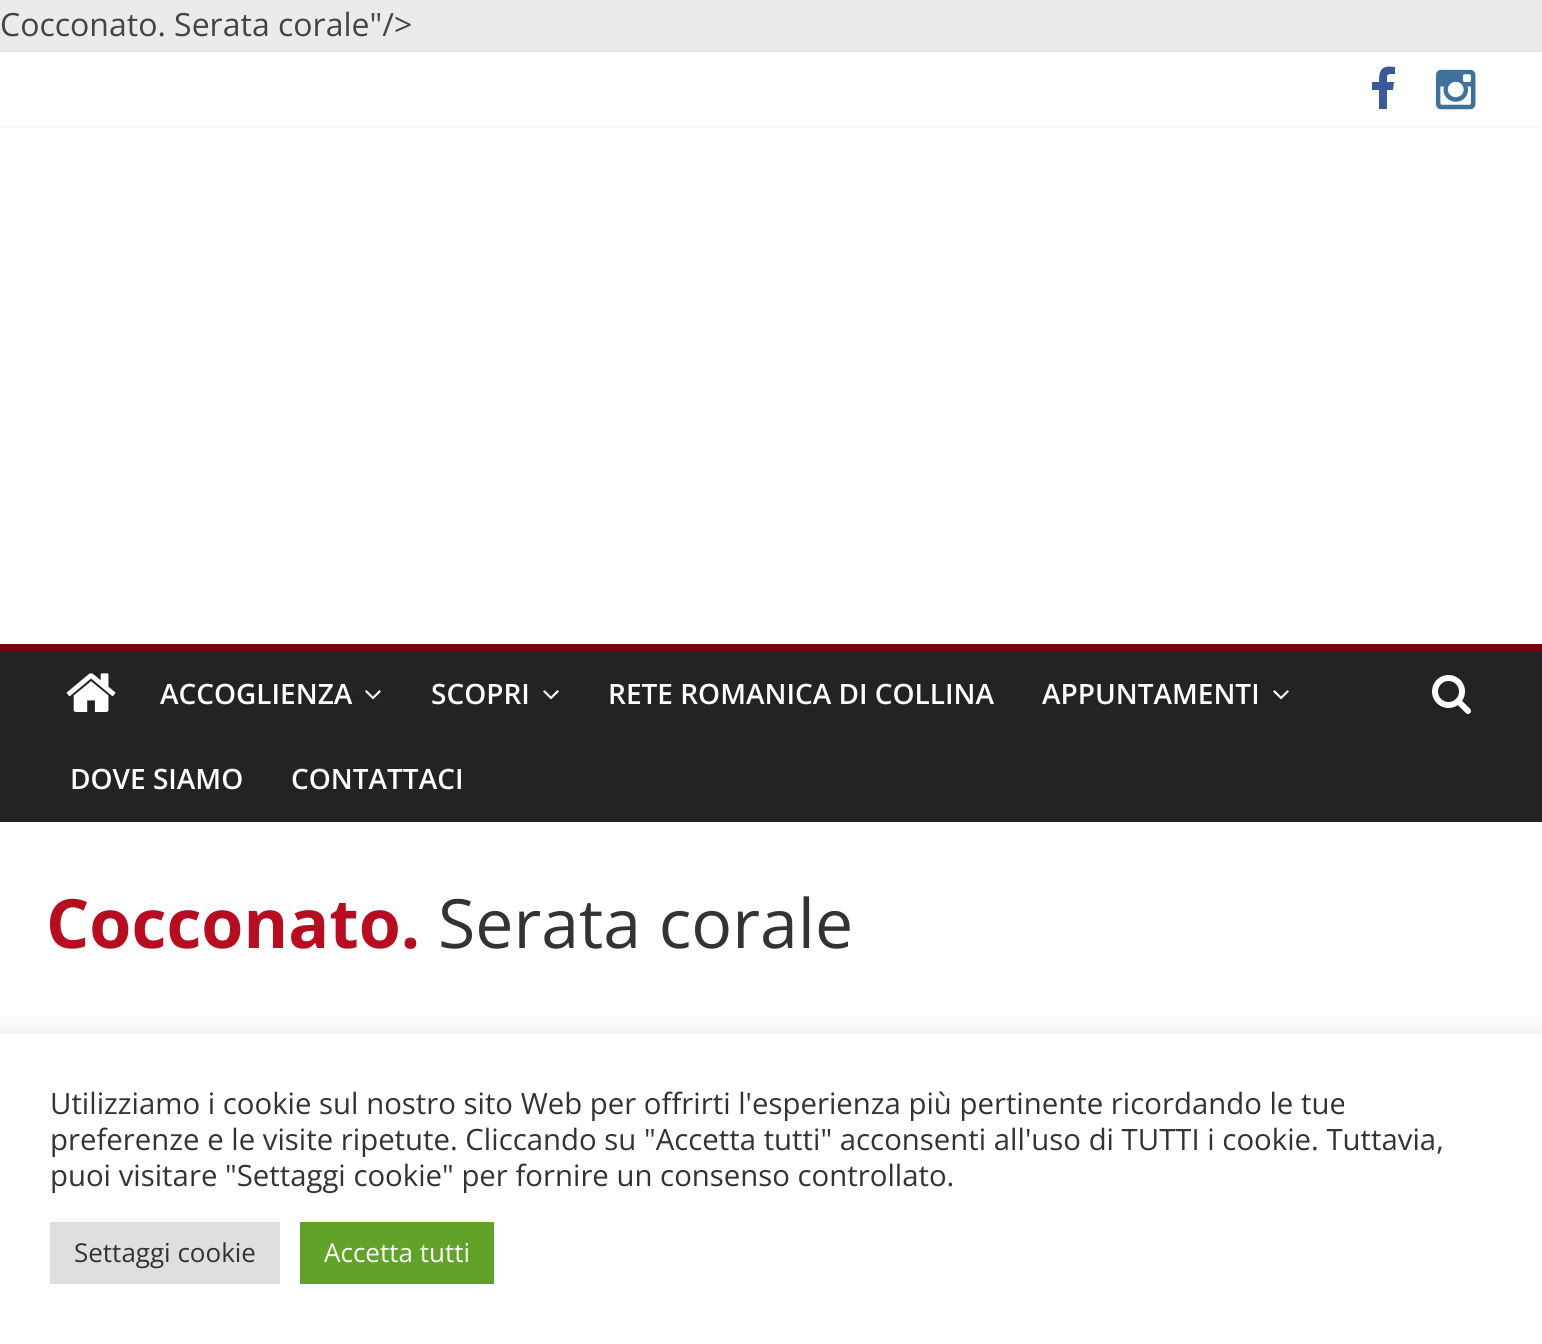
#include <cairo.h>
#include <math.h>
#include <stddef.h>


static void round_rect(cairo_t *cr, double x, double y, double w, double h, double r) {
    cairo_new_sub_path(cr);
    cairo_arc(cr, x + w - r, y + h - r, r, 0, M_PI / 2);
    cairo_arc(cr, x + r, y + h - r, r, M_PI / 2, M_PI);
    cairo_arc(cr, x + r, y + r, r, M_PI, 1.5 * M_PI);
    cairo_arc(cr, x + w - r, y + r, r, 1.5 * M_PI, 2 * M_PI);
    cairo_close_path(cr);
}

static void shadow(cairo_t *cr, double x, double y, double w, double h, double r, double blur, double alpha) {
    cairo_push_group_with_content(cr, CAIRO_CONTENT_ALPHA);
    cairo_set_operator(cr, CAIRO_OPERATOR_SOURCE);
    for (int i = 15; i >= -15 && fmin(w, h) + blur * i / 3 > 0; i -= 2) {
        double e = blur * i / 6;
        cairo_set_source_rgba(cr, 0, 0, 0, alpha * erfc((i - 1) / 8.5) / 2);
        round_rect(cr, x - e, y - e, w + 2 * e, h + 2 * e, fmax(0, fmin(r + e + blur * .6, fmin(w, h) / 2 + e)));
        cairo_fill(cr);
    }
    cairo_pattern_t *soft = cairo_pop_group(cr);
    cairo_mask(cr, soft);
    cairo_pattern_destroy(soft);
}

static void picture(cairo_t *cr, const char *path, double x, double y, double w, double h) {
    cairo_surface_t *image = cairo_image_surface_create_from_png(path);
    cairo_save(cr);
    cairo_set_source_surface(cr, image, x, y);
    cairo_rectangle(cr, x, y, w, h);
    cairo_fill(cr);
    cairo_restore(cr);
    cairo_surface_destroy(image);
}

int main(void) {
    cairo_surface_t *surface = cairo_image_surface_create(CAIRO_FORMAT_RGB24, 1542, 1344);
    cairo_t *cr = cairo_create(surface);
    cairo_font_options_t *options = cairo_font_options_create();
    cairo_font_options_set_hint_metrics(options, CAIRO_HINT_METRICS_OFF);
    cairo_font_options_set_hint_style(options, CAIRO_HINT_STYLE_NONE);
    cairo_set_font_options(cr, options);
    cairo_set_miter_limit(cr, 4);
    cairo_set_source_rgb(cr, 0.918, 0.918, 0.918);
    cairo_paint(cr);
    cairo_select_font_face(cr, "Open Sans", CAIRO_FONT_SLANT_NORMAL, CAIRO_FONT_WEIGHT_NORMAL);
    cairo_set_font_size(cr, 32);
    cairo_set_source_rgb(cr, 0.267, 0.267, 0.267);
    cairo_move_to(cr, 0, 36);
    cairo_show_text(cr, "Cocconato. Serata corale\"/>");
    cairo_set_source_rgb(cr, 1, 1, 1);
    cairo_rectangle(cr, 0, 52, 1542, 592);
    cairo_fill(cr);
    cairo_save(cr);
    cairo_set_fill_rule(cr, CAIRO_FILL_RULE_EVEN_ODD);
    cairo_new_path(cr);
    cairo_move_to(cr, 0, 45);
    cairo_line_to(cr, 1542, 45);
    cairo_line_to(cr, 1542, 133);
    cairo_line_to(cr, 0, 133);
    cairo_close_path(cr);
    cairo_move_to(cr, 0, 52);
    cairo_line_to(cr, 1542, 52);
    cairo_line_to(cr, 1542, 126);
    cairo_line_to(cr, 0, 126);
    cairo_close_path(cr);
    cairo_clip(cr);
    cairo_set_source_rgb(cr, 0, 0, 0);
    shadow(cr, 0, 52, 1542, 74, 0, 2, 0.1);
    cairo_restore(cr);
    cairo_set_source_rgb(cr, 0.231, 0.353, 0.608);
    cairo_new_path(cr);
    cairo_move_to(cr, 1372, 90);
    cairo_line_to(cr, 1372, 82);
    cairo_line_to(cr, 1379, 82);
    cairo_curve_to(cr, 1379, 70, 1381, 65, 1395, 67);
    cairo_line_to(cr, 1395, 74);
    cairo_curve_to(cr, 1386, 74, 1387, 74, 1387, 82);
    cairo_line_to(cr, 1394, 82);
    cairo_line_to(cr, 1393, 90);
    cairo_line_to(cr, 1387, 90);
    cairo_line_to(cr, 1387, 109);
    cairo_line_to(cr, 1379, 109);
    cairo_line_to(cr, 1379, 90);
    cairo_close_path(cr);
    cairo_fill(cr);
    picture(cr, "img1.png", 1436, 69, 40, 41);
    cairo_set_source_rgb(cr, 0.137, 0.137, 0.137);
    cairo_rectangle(cr, 0, 652, 1542, 170);
    cairo_fill(cr);
    cairo_set_source_rgb(cr, 0.467, 0.008, 0.082);
    cairo_rectangle(cr, 0, 644, 1542, 8);
    cairo_fill(cr);
    picture(cr, "img2.png", 66, 673, 50, 39);
    picture(cr, "img3.png", 1432, 675, 39, 39);
    cairo_select_font_face(cr, "Open Sans SemiBold", CAIRO_FONT_SLANT_NORMAL, CAIRO_FONT_WEIGHT_NORMAL);
    cairo_set_font_size(cr, 28);
    cairo_set_source_rgb(cr, 1, 1, 1);
    cairo_move_to(cr, 160, 704);
    cairo_show_text(cr, "ACCOGLIENZA");
    picture(cr, "img4.png", 365, 690, 16, 10);
    cairo_move_to(cr, 431, 704);
    cairo_show_text(cr, "SCOPRI");
    picture(cr, "img4.png", 543, 690, 16, 10);
    cairo_move_to(cr, 608, 704);
    cairo_show_text(cr, "RETE ROMANICA DI COLLINA");
    cairo_move_to(cr, 1042, 704);
    cairo_show_text(cr, "APPUNTAMENTI");
    picture(cr, "img4.png", 1273, 690, 16, 10);
    cairo_move_to(cr, 70, 789);
    cairo_show_text(cr, "DOVE SIAMO");
    cairo_move_to(cr, 291, 789);
    cairo_show_text(cr, "CONTATTACI");
    cairo_rectangle(cr, 0, 822, 1542, 212);
    cairo_fill(cr);
    cairo_select_font_face(cr, "Open Sans", CAIRO_FONT_SLANT_NORMAL, CAIRO_FONT_WEIGHT_BOLD);
    cairo_set_font_size(cr, 68);
    cairo_set_source_rgb(cr, 0.714, 0.051, 0.125);
    cairo_move_to(cr, 46, 948);
    cairo_show_text(cr, "Cocconato.");
    cairo_select_font_face(cr, "Open Sans", CAIRO_FONT_SLANT_NORMAL, CAIRO_FONT_WEIGHT_NORMAL);
    cairo_set_source_rgb(cr, 0.2, 0.2, 0.2);
    cairo_move_to(cr, 438, 948);
    cairo_show_text(cr, "Serata corale");
    cairo_set_source_rgb(cr, 0.675, 0.671, 0.671);
    shadow(cr, 0, 1032, 1542, 310, 0, 10, 0.3);
    cairo_set_source_rgb(cr, 1, 1, 1);
    cairo_rectangle(cr, 0, 1034, 1542, 310);
    cairo_fill(cr);
    cairo_set_font_size(cr, 29.35);
    cairo_set_source_rgb(cr, 0.2, 0.2, 0.2);
    cairo_move_to(cr, 50, 1114);
    cairo_show_text(cr, "Utilizziamo i cookie sul nostro sito Web per offrirti l'esperienza più pertinente ricordando le tue");
    cairo_move_to(cr, 50, 1150);
    cairo_show_text(cr, "preferenze e le visite ripetute. Cliccando su \"Accetta tutti\" acconsenti all'uso di TUTTI i cookie. Tuttavia,");
    cairo_move_to(cr, 50, 1186);
    cairo_show_text(cr, "puoi visitare \"Settaggi cookie\" per fornire un consenso controllato.");
    cairo_set_source_rgb(cr, 0.871, 0.875, 0.878);
    cairo_rectangle(cr, 50, 1222, 230, 62);
    cairo_fill(cr);
    cairo_set_font_size(cr, 26);
    cairo_set_source_rgb(cr, 0.2, 0.2, 0.2);
    cairo_move_to(cr, 74, 1262);
    cairo_show_text(cr, "Settaggi cookie");
    cairo_set_source_rgb(cr, 0.38, 0.635, 0.161);
    cairo_rectangle(cr, 300, 1222, 194, 62);
    cairo_fill(cr);
    cairo_set_source_rgb(cr, 1, 1, 1);
    cairo_move_to(cr, 324, 1262);
    cairo_show_text(cr, "Accetta tutti");
    cairo_surface_write_to_png(surface, "page.png");
    cairo_font_options_destroy(options);
    cairo_destroy(cr);
    cairo_surface_destroy(surface);
    return 0;
}
